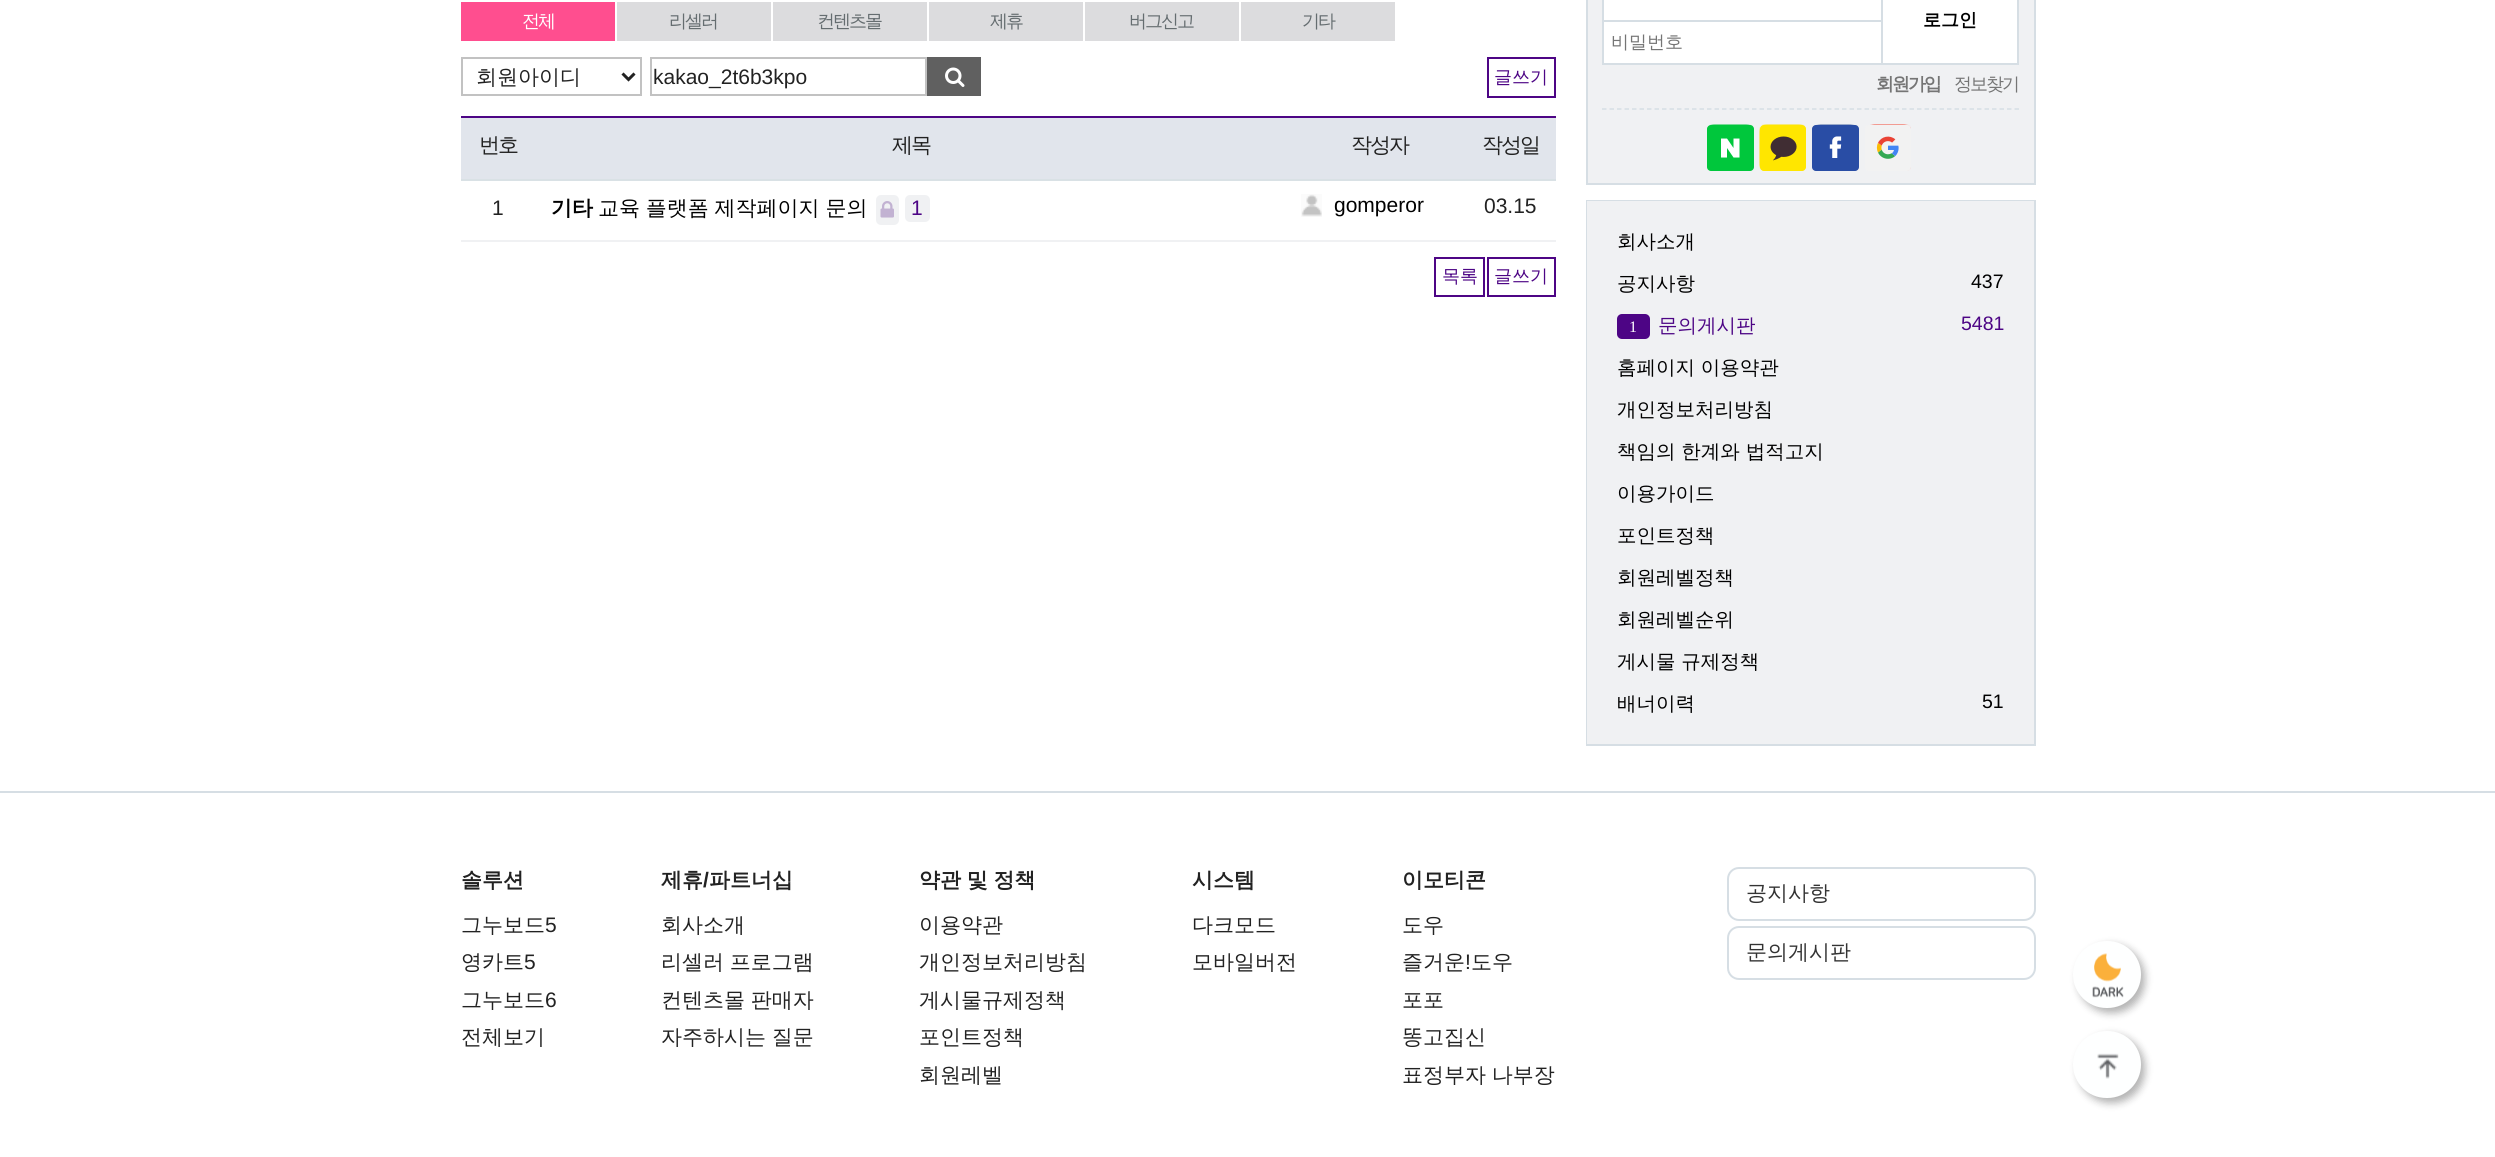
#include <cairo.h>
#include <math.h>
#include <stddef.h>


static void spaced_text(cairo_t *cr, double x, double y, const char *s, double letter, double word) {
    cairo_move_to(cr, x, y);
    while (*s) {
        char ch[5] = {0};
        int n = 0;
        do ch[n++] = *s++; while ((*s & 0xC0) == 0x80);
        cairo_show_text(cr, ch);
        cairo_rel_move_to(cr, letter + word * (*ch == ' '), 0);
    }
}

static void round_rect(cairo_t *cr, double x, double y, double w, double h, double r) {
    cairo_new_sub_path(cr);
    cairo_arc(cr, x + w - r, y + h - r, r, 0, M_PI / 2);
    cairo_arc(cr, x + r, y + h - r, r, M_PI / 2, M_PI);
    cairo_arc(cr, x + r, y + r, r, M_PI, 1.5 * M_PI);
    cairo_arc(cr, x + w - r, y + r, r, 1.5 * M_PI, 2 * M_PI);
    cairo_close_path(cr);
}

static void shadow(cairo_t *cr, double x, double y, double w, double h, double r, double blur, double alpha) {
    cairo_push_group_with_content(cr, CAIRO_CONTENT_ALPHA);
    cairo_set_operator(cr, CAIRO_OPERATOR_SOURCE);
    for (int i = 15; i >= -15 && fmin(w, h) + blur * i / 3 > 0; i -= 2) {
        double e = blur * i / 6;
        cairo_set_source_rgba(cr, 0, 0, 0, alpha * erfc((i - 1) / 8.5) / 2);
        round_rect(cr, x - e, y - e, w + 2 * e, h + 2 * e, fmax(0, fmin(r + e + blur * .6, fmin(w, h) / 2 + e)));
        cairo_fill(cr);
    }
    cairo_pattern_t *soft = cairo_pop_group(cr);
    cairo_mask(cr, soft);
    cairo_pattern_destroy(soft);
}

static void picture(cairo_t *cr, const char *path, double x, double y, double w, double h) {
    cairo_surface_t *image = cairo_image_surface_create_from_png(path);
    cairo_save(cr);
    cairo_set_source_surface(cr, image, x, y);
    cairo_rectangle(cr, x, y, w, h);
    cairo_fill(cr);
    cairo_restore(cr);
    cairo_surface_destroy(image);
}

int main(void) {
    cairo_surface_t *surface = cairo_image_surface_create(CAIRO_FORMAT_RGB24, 2495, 1157);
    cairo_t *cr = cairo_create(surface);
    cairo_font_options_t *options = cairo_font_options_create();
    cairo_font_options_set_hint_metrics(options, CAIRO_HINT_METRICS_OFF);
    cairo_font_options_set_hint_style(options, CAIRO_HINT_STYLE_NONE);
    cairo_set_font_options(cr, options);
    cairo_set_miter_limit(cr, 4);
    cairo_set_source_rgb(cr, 1, 1, 1);
    cairo_paint(cr);
    cairo_set_source_rgb(cr, 1, 0.306, 0.561);
    cairo_rectangle(cr, 461, 2, 154, 39);
    cairo_fill(cr);
    cairo_select_font_face(cr, "WenQuanYi Zen Hei Medium", CAIRO_FONT_SLANT_NORMAL, CAIRO_FONT_WEIGHT_NORMAL);
    cairo_set_font_size(cr, 18);
    cairo_set_source_rgb(cr, 1, 1, 1);
    spaced_text(cr, 522, 27, "전체", -2, 0);
    cairo_set_source_rgb(cr, 0.863, 0.863, 0.871);
    cairo_rectangle(cr, 617, 2, 154, 39);
    cairo_fill(cr);
    cairo_set_source_rgb(cr, 0.396, 0.427, 0.439);
    spaced_text(cr, 669, 27, "리셀러", -2, 0);
    cairo_set_source_rgb(cr, 0.863, 0.863, 0.871);
    cairo_rectangle(cr, 773, 2, 154, 39);
    cairo_fill(cr);
    cairo_set_source_rgb(cr, 0.396, 0.427, 0.439);
    spaced_text(cr, 817, 27, "컨텐츠몰", -2, 0);
    cairo_set_source_rgb(cr, 0.863, 0.863, 0.871);
    cairo_rectangle(cr, 929, 2, 154, 39);
    cairo_fill(cr);
    cairo_set_source_rgb(cr, 0.396, 0.427, 0.439);
    spaced_text(cr, 990, 27, "제휴", -2, 0);
    cairo_set_source_rgb(cr, 0.863, 0.863, 0.871);
    cairo_rectangle(cr, 1085, 2, 154, 39);
    cairo_fill(cr);
    cairo_set_source_rgb(cr, 0.396, 0.427, 0.439);
    spaced_text(cr, 1129, 27, "버그신고", -2, 0);
    cairo_set_source_rgb(cr, 0.863, 0.863, 0.871);
    cairo_rectangle(cr, 1241, 2, 154, 39);
    cairo_fill(cr);
    cairo_set_source_rgb(cr, 0.396, 0.427, 0.439);
    spaced_text(cr, 1302, 27, "기타", -2, 0);
    cairo_rectangle(cr, 462, 58, 179, 37);
    cairo_set_source_rgb(cr, 0.761, 0.761, 0.761);
    cairo_stroke(cr);
    cairo_new_path(cr);
    cairo_move_to(cr, 622.5, 73.5);
    cairo_line_to(cr, 628.5, 79.5);
    cairo_line_to(cr, 634.5, 73.5);
    cairo_set_source_rgb(cr, 0.133, 0.133, 0.133);
    cairo_set_line_width(cr, 3);
    cairo_stroke(cr);
    cairo_set_font_size(cr, 21);
    cairo_move_to(cr, 476, 84);
    cairo_show_text(cr, "회원아이디");
    cairo_rectangle(cr, 651, 58, 275, 37);
    cairo_set_source_rgb(cr, 0.761, 0.761, 0.761);
    cairo_set_line_width(cr, 2);
    cairo_stroke(cr);
    cairo_select_font_face(cr, "Liberation Sans", CAIRO_FONT_SLANT_NORMAL, CAIRO_FONT_WEIGHT_NORMAL);
    cairo_set_source_rgb(cr, 0.133, 0.133, 0.133);
    cairo_move_to(cr, 653, 84);
    cairo_show_text(cr, "kakao_2t6b3kpo");
    cairo_set_source_rgb(cr, 0.376, 0.376, 0.376);
    cairo_rectangle(cr, 927, 57, 54, 39);
    cairo_fill(cr);
    picture(cr, "img1.png", 945, 67, 20, 20);
    cairo_rectangle(cr, 1488, 58, 67, 39);
    cairo_set_source_rgb(cr, 0.302, 0.02, 0.522);
    cairo_stroke(cr);
    cairo_select_font_face(cr, "WenQuanYi Zen Hei Medium", CAIRO_FONT_SLANT_NORMAL, CAIRO_FONT_WEIGHT_NORMAL);
    cairo_set_font_size(cr, 18);
    cairo_move_to(cr, 1494, 83);
    cairo_show_text(cr, "글쓰기");
    cairo_set_source_rgb(cr, 0.882, 0.898, 0.925);
    cairo_rectangle(cr, 461, 118, 1095, 61);
    cairo_fill(cr);
    cairo_set_source_rgb(cr, 0.302, 0.02, 0.522);
    cairo_rectangle(cr, 461, 116, 1095, 2);
    cairo_fill(cr);
    cairo_set_source_rgb(cr, 0.851, 0.882, 0.898);
    cairo_rectangle(cr, 461, 179, 1095, 2);
    cairo_fill(cr);
    cairo_set_font_size(cr, 21);
    cairo_set_source_rgb(cr, 0.133, 0.133, 0.133);
    spaced_text(cr, 479, 152, "번호", -2, 0);
    spaced_text(cr, 892, 152, "제목", -2, 0);
    spaced_text(cr, 1351, 152, "작성자", -2, 0);
    spaced_text(cr, 1482, 152, "작성일", -2, 0);
    cairo_set_source_rgb(cr, 0.941, 0.945, 0.953);
    cairo_rectangle(cr, 461, 240, 1095, 2);
    cairo_fill(cr);
    cairo_select_font_face(cr, "Liberation Sans", CAIRO_FONT_SLANT_NORMAL, CAIRO_FONT_WEIGHT_NORMAL);
    cairo_set_source_rgb(cr, 0.133, 0.133, 0.133);
    cairo_move_to(cr, 492, 215);
    cairo_show_text(cr, "1");
    cairo_select_font_face(cr, "WenQuanYi Zen Hei", CAIRO_FONT_SLANT_NORMAL, CAIRO_FONT_WEIGHT_BOLD);
    cairo_set_source_rgb(cr, 0, 0, 0);
    cairo_move_to(cr, 551, 215);
    cairo_show_text(cr, "기타");
    cairo_select_font_face(cr, "WenQuanYi Zen Hei Medium", CAIRO_FONT_SLANT_NORMAL, CAIRO_FONT_WEIGHT_NORMAL);
    spaced_text(cr, 598, 215, "교육 플랫폼 제작페이지 문의", 0, -0.5);
    cairo_set_source_rgb(cr, 0.941, 0.945, 0.953);
    round_rect(cr, 876, 195, 23, 30, 5);
    cairo_fill(cr);
    picture(cr, "img2.png", 880, 201, 14, 17);
    round_rect(cr, 905, 195, 25, 27, 5);
    cairo_fill(cr);
    cairo_select_font_face(cr, "Liberation Sans", CAIRO_FONT_SLANT_NORMAL, CAIRO_FONT_WEIGHT_NORMAL);
    cairo_set_source_rgb(cr, 0.302, 0.02, 0.522);
    cairo_move_to(cr, 911, 215);
    cairo_show_text(cr, "1");
    picture(cr, "img3.png", 1301, 194, 21, 23);
    cairo_set_source_rgb(cr, 0, 0, 0);
    cairo_move_to(cr, 1334, 212);
    cairo_show_text(cr, "gomperor");
    cairo_set_source_rgb(cr, 0.133, 0.133, 0.133);
    cairo_move_to(cr, 1484, 213);
    cairo_show_text(cr, "03.15");
    cairo_rectangle(cr, 1435, 258, 49, 38);
    cairo_set_source_rgb(cr, 0.302, 0.02, 0.522);
    cairo_stroke(cr);
    cairo_select_font_face(cr, "WenQuanYi Zen Hei Medium", CAIRO_FONT_SLANT_NORMAL, CAIRO_FONT_WEIGHT_NORMAL);
    cairo_set_font_size(cr, 18);
    cairo_move_to(cr, 1442, 282);
    cairo_show_text(cr, "목록");
    cairo_rectangle(cr, 1488, 258, 67, 38);
    cairo_stroke(cr);
    cairo_move_to(cr, 1494, 282);
    cairo_show_text(cr, "글쓰기");
    cairo_set_source_rgb(cr, 0.941, 0.945, 0.953);
    cairo_rectangle(cr, 1587, -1, 448, 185);
    cairo_fill_preserve(cr);
    cairo_set_source_rgb(cr, 0.839, 0.871, 0.894);
    cairo_stroke(cr);
    cairo_new_path(cr);
    cairo_move_to(cr, 1602, 109);
    cairo_line_to(cr, 2019, 109);
    cairo_set_line_width(cr, 1.5);
    cairo_set_dash(cr, (double[]){4.5, 3}, 2, 0);
    cairo_stroke(cr);
    cairo_set_source_rgb(cr, 1, 1, 1);
    cairo_rectangle(cr, 1604, 0, 277, 20);
    cairo_fill(cr);
    cairo_set_source_rgb(cr, 0.839, 0.871, 0.894);
    cairo_rectangle(cr, 1602, 0, 2, 20);
    cairo_fill(cr);
    cairo_set_source_rgb(cr, 1, 1, 1);
    cairo_rectangle(cr, 1603, 21, 279, 43);
    cairo_fill_preserve(cr);
    cairo_set_source_rgb(cr, 0.839, 0.871, 0.894);
    cairo_set_line_width(cr, 2);
    cairo_set_dash(cr, NULL, 0, 0);
    cairo_stroke(cr);
    cairo_set_source_rgb(cr, 1, 1, 1);
    cairo_rectangle(cr, 1882, -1, 136, 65);
    cairo_fill_preserve(cr);
    cairo_set_source_rgb(cr, 0.839, 0.871, 0.894);
    cairo_stroke(cr);
    cairo_select_font_face(cr, "WenQuanYi Zen Hei", CAIRO_FONT_SLANT_NORMAL, CAIRO_FONT_WEIGHT_BOLD);
    cairo_set_source_rgb(cr, 0, 0, 0);
    cairo_move_to(cr, 1923, 26);
    cairo_show_text(cr, "로그인");
    cairo_select_font_face(cr, "WenQuanYi Zen Hei Medium", CAIRO_FONT_SLANT_NORMAL, CAIRO_FONT_WEIGHT_NORMAL);
    cairo_set_source_rgb(cr, 0.459, 0.459, 0.459);
    cairo_move_to(cr, 1611, 48);
    cairo_show_text(cr, "비밀번호");
    cairo_select_font_face(cr, "WenQuanYi Zen Hei", CAIRO_FONT_SLANT_NORMAL, CAIRO_FONT_WEIGHT_BOLD);
    spaced_text(cr, 1876, 90, "회원가입", -2, 0);
    cairo_select_font_face(cr, "WenQuanYi Zen Hei Medium", CAIRO_FONT_SLANT_NORMAL, CAIRO_FONT_WEIGHT_NORMAL);
    spaced_text(cr, 1954, 90, "정보찾기", -2, 0);
    picture(cr, "img4.png", 1707, 124, 47, 47);
    cairo_set_source_rgb(cr, 0, 0.78, 0.235);
    round_rect(cr, 1707, 125, 47, 46, 4);
    cairo_fill(cr);
    cairo_set_source_rgb(cr, 1, 1, 1);
    cairo_new_path(cr);
    cairo_move_to(cr, 1733.5, 138.5);
    cairo_line_to(cr, 1733.5, 148);
    cairo_line_to(cr, 1727, 138.5);
    cairo_line_to(cr, 1721, 138.5);
    cairo_line_to(cr, 1721, 157.5);
    cairo_line_to(cr, 1727, 157.5);
    cairo_line_to(cr, 1727, 148);
    cairo_line_to(cr, 1733.5, 157.5);
    cairo_line_to(cr, 1739.5, 157.5);
    cairo_line_to(cr, 1739.5, 138.5);
    cairo_close_path(cr);
    cairo_fill(cr);
    picture(cr, "img5.png", 1759, 124, 47, 47);
    picture(cr, "img6.png", 1760, 125, 46, 46);
    picture(cr, "img7.png", 1812, 124, 47, 47);
    picture(cr, "img8.png", 1812, 125, 47, 46);
    picture(cr, "img9.png", 1870, 124, 41, 47);
    picture(cr, "img10.png", 1865, 125, 46, 46);
    cairo_rectangle(cr, 1587, 201, 448, 544);
    cairo_set_source_rgb(cr, 0.839, 0.871, 0.894);
    cairo_stroke(cr);
    cairo_set_source_rgb(cr, 0.941, 0.945, 0.953);
    cairo_rectangle(cr, 1587, 201, 447, 543);
    cairo_fill(cr);
    cairo_set_font_size(cr, 19.5);
    cairo_set_source_rgb(cr, 0, 0, 0);
    cairo_move_to(cr, 1617, 248);
    cairo_show_text(cr, "회사소개");
    cairo_move_to(cr, 1617, 290);
    cairo_show_text(cr, "공지사항");
    cairo_select_font_face(cr, "Liberation Sans", CAIRO_FONT_SLANT_NORMAL, CAIRO_FONT_WEIGHT_NORMAL);
    cairo_move_to(cr, 1971, 288);
    cairo_show_text(cr, "437");
    cairo_set_source_rgb(cr, 0.302, 0.02, 0.522);
    round_rect(cr, 1617, 314, 33, 25, 5);
    cairo_fill(cr);
    cairo_select_font_face(cr, "Liberation Serif", CAIRO_FONT_SLANT_NORMAL, CAIRO_FONT_WEIGHT_NORMAL);
    cairo_set_font_size(cr, 16);
    cairo_set_source_rgb(cr, 1, 1, 1);
    cairo_move_to(cr, 1629, 332);
    cairo_show_text(cr, "1");
    cairo_select_font_face(cr, "WenQuanYi Zen Hei Medium", CAIRO_FONT_SLANT_NORMAL, CAIRO_FONT_WEIGHT_NORMAL);
    cairo_set_font_size(cr, 19.5);
    cairo_set_source_rgb(cr, 0.302, 0.02, 0.522);
    cairo_move_to(cr, 1658, 332);
    cairo_show_text(cr, "문의게시판");
    cairo_select_font_face(cr, "Liberation Sans", CAIRO_FONT_SLANT_NORMAL, CAIRO_FONT_WEIGHT_NORMAL);
    cairo_move_to(cr, 1961, 330);
    cairo_show_text(cr, "5481");
    cairo_select_font_face(cr, "WenQuanYi Zen Hei Medium", CAIRO_FONT_SLANT_NORMAL, CAIRO_FONT_WEIGHT_NORMAL);
    cairo_set_source_rgb(cr, 0, 0, 0);
    cairo_move_to(cr, 1617, 374);
    cairo_show_text(cr, "홈페이지 이용약관");
    cairo_move_to(cr, 1617, 416);
    cairo_show_text(cr, "개인정보처리방침");
    cairo_move_to(cr, 1617, 458);
    cairo_show_text(cr, "책임의 한계와 법적고지");
    cairo_move_to(cr, 1617, 500);
    cairo_show_text(cr, "이용가이드");
    cairo_move_to(cr, 1617, 542);
    cairo_show_text(cr, "포인트정책");
    cairo_move_to(cr, 1617, 584);
    cairo_show_text(cr, "회원레벨정책");
    cairo_move_to(cr, 1617, 626);
    cairo_show_text(cr, "회원레벨순위");
    cairo_move_to(cr, 1617, 668);
    cairo_show_text(cr, "게시물 규제정책");
    cairo_move_to(cr, 1617, 710);
    cairo_show_text(cr, "배너이력");
    cairo_select_font_face(cr, "Liberation Sans", CAIRO_FONT_SLANT_NORMAL, CAIRO_FONT_WEIGHT_NORMAL);
    cairo_move_to(cr, 1982, 708);
    cairo_show_text(cr, "51");
    cairo_set_source_rgb(cr, 0, 0, 0);
    shadow(cr, 2078, 945, 67, 68, 33.5, 4, 0.3);
    cairo_set_source_rgb(cr, 0.996, 1, 1);
    round_rect(cr, 2073, 941, 68, 67, 33.5);
    cairo_fill(cr);
    picture(cr, "img11.png", 2092, 953, 32, 45);
    cairo_set_source_rgb(cr, 0, 0, 0);
    shadow(cr, 2078, 1035, 67, 68, 33.5, 4, 0.3);
    cairo_set_source_rgb(cr, 0.996, 1, 1);
    round_rect(cr, 2073, 1031, 68, 67, 33.5);
    cairo_fill(cr);
    picture(cr, "img12.png", 2097, 1053, 22, 26);
    cairo_set_source_rgb(cr, 0.839, 0.871, 0.894);
    cairo_rectangle(cr, 0, 791, 2495, 2);
    cairo_fill(cr);
    cairo_select_font_face(cr, "WenQuanYi Zen Hei", CAIRO_FONT_SLANT_NORMAL, CAIRO_FONT_WEIGHT_BOLD);
    cairo_set_font_size(cr, 21);
    cairo_set_source_rgb(cr, 0.133, 0.133, 0.133);
    cairo_move_to(cr, 461, 887);
    cairo_show_text(cr, "솔루션");
    cairo_select_font_face(cr, "WenQuanYi Zen Hei Medium", CAIRO_FONT_SLANT_NORMAL, CAIRO_FONT_WEIGHT_NORMAL);
    cairo_move_to(cr, 461, 932);
    cairo_show_text(cr, "그누보드");
    cairo_select_font_face(cr, "Liberation Sans", CAIRO_FONT_SLANT_NORMAL, CAIRO_FONT_WEIGHT_NORMAL);
    cairo_move_to(cr, 545, 932);
    cairo_show_text(cr, "5");
    cairo_select_font_face(cr, "WenQuanYi Zen Hei Medium", CAIRO_FONT_SLANT_NORMAL, CAIRO_FONT_WEIGHT_NORMAL);
    cairo_move_to(cr, 461, 969);
    cairo_show_text(cr, "영카트");
    cairo_select_font_face(cr, "Liberation Sans", CAIRO_FONT_SLANT_NORMAL, CAIRO_FONT_WEIGHT_NORMAL);
    cairo_move_to(cr, 524, 969);
    cairo_show_text(cr, "5");
    cairo_select_font_face(cr, "WenQuanYi Zen Hei Medium", CAIRO_FONT_SLANT_NORMAL, CAIRO_FONT_WEIGHT_NORMAL);
    cairo_move_to(cr, 461, 1007);
    cairo_show_text(cr, "그누보드");
    cairo_select_font_face(cr, "Liberation Sans", CAIRO_FONT_SLANT_NORMAL, CAIRO_FONT_WEIGHT_NORMAL);
    cairo_move_to(cr, 545, 1007);
    cairo_show_text(cr, "6");
    cairo_select_font_face(cr, "WenQuanYi Zen Hei Medium", CAIRO_FONT_SLANT_NORMAL, CAIRO_FONT_WEIGHT_NORMAL);
    cairo_move_to(cr, 461, 1044);
    cairo_show_text(cr, "전체보기");
    cairo_select_font_face(cr, "WenQuanYi Zen Hei", CAIRO_FONT_SLANT_NORMAL, CAIRO_FONT_WEIGHT_BOLD);
    cairo_move_to(cr, 661, 887);
    cairo_show_text(cr, "제휴");
    cairo_select_font_face(cr, "Liberation Sans", CAIRO_FONT_SLANT_NORMAL, CAIRO_FONT_WEIGHT_BOLD);
    cairo_move_to(cr, 703, 887);
    cairo_show_text(cr, "/");
    cairo_select_font_face(cr, "WenQuanYi Zen Hei", CAIRO_FONT_SLANT_NORMAL, CAIRO_FONT_WEIGHT_BOLD);
    cairo_move_to(cr, 709, 887);
    cairo_show_text(cr, "파트너십");
    cairo_select_font_face(cr, "WenQuanYi Zen Hei Medium", CAIRO_FONT_SLANT_NORMAL, CAIRO_FONT_WEIGHT_NORMAL);
    cairo_move_to(cr, 661, 932);
    cairo_show_text(cr, "회사소개");
    spaced_text(cr, 661, 969, "리셀러 프로그램", 0, -0.5);
    spaced_text(cr, 661, 1007, "컨텐츠몰 판매자", 0, -0.5);
    spaced_text(cr, 661, 1044, "자주하시는 질문", 0, -0.5);
    cairo_select_font_face(cr, "WenQuanYi Zen Hei", CAIRO_FONT_SLANT_NORMAL, CAIRO_FONT_WEIGHT_BOLD);
    spaced_text(cr, 919, 887, "약관 및 정책", 0, -0.5);
    cairo_select_font_face(cr, "WenQuanYi Zen Hei Medium", CAIRO_FONT_SLANT_NORMAL, CAIRO_FONT_WEIGHT_NORMAL);
    cairo_move_to(cr, 919, 932);
    cairo_show_text(cr, "이용약관");
    cairo_move_to(cr, 919, 969);
    cairo_show_text(cr, "개인정보처리방침");
    cairo_move_to(cr, 919, 1007);
    cairo_show_text(cr, "게시물규제정책");
    cairo_move_to(cr, 919, 1044);
    cairo_show_text(cr, "포인트정책");
    cairo_move_to(cr, 919, 1082);
    cairo_show_text(cr, "회원레벨");
    cairo_select_font_face(cr, "WenQuanYi Zen Hei", CAIRO_FONT_SLANT_NORMAL, CAIRO_FONT_WEIGHT_BOLD);
    cairo_move_to(cr, 1192, 887);
    cairo_show_text(cr, "시스템");
    cairo_select_font_face(cr, "WenQuanYi Zen Hei Medium", CAIRO_FONT_SLANT_NORMAL, CAIRO_FONT_WEIGHT_NORMAL);
    cairo_move_to(cr, 1192, 932);
    cairo_show_text(cr, "다크모드");
    cairo_move_to(cr, 1192, 969);
    cairo_show_text(cr, "모바일버전");
    cairo_select_font_face(cr, "WenQuanYi Zen Hei", CAIRO_FONT_SLANT_NORMAL, CAIRO_FONT_WEIGHT_BOLD);
    cairo_move_to(cr, 1402, 887);
    cairo_show_text(cr, "이모티콘");
    cairo_select_font_face(cr, "WenQuanYi Zen Hei Medium", CAIRO_FONT_SLANT_NORMAL, CAIRO_FONT_WEIGHT_NORMAL);
    cairo_move_to(cr, 1402, 932);
    cairo_show_text(cr, "도우");
    cairo_move_to(cr, 1402, 969);
    cairo_show_text(cr, "즐거운");
    cairo_select_font_face(cr, "Liberation Sans", CAIRO_FONT_SLANT_NORMAL, CAIRO_FONT_WEIGHT_NORMAL);
    cairo_move_to(cr, 1465, 969);
    cairo_show_text(cr, "!");
    cairo_select_font_face(cr, "WenQuanYi Zen Hei Medium", CAIRO_FONT_SLANT_NORMAL, CAIRO_FONT_WEIGHT_NORMAL);
    cairo_move_to(cr, 1471, 969);
    cairo_show_text(cr, "도우");
    cairo_move_to(cr, 1402, 1007);
    cairo_show_text(cr, "포포");
    cairo_move_to(cr, 1402, 1044);
    cairo_show_text(cr, "똥고집신");
    spaced_text(cr, 1402, 1082, "표정부자 나부장", 0, -0.5);
    round_rect(cr, 1728, 868, 307, 52, 11);
    cairo_set_source_rgb(cr, 0.839, 0.871, 0.894);
    cairo_stroke(cr);
    cairo_set_source_rgb(cr, 0.2, 0.2, 0.2);
    cairo_move_to(cr, 1746, 900);
    cairo_show_text(cr, "공지사항");
    round_rect(cr, 1728, 927, 307, 52, 11);
    cairo_set_source_rgb(cr, 0.839, 0.871, 0.894);
    cairo_stroke(cr);
    cairo_set_source_rgb(cr, 0.2, 0.2, 0.2);
    cairo_move_to(cr, 1746, 959);
    cairo_show_text(cr, "문의게시판");
    cairo_surface_write_to_png(surface, "page.png");
    cairo_font_options_destroy(options);
    cairo_destroy(cr);
    cairo_surface_destroy(surface);
    return 0;
}
